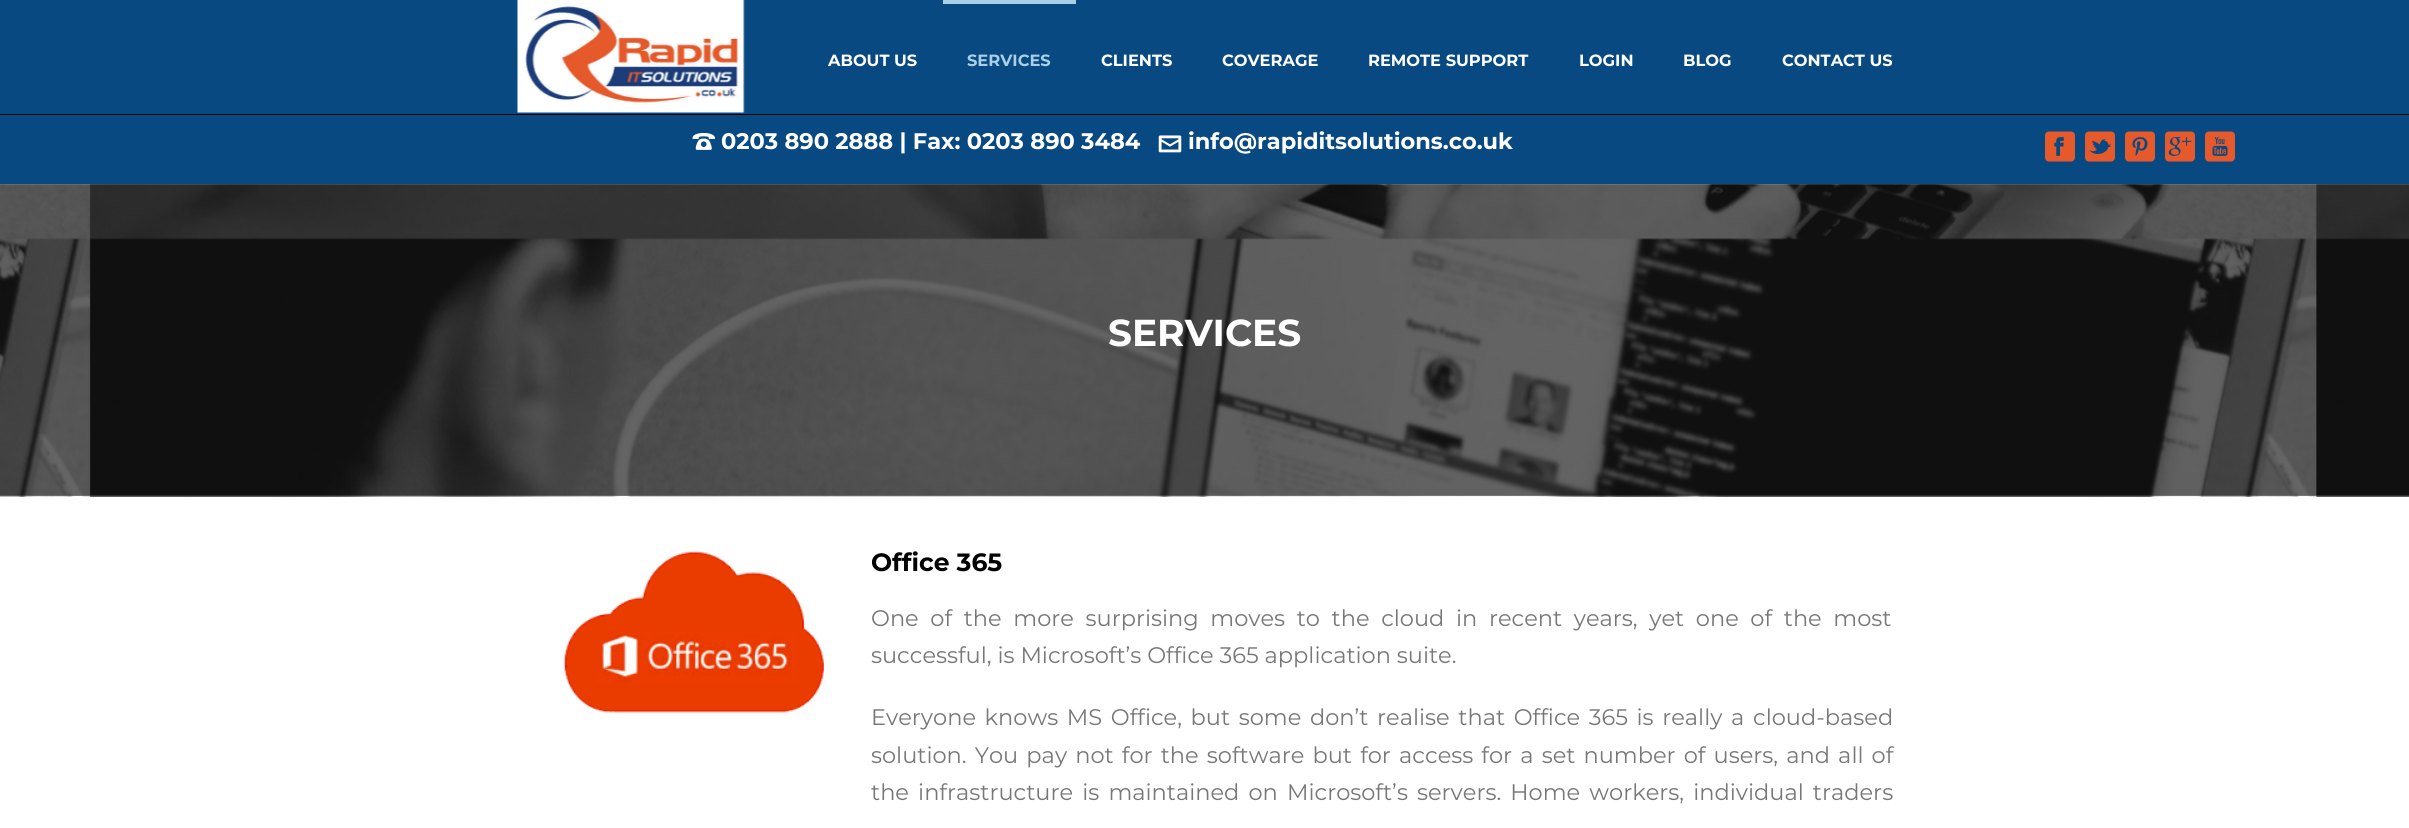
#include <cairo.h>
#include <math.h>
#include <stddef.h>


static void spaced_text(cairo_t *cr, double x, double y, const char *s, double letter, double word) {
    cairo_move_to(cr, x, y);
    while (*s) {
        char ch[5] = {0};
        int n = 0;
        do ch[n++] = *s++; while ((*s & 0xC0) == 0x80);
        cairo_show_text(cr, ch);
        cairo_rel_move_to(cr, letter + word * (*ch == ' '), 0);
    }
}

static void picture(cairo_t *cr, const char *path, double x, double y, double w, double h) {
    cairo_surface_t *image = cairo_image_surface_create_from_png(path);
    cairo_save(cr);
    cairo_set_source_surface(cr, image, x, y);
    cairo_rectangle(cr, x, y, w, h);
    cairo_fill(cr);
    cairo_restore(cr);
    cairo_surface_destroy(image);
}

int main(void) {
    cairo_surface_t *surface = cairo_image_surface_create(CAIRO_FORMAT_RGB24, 2409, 828);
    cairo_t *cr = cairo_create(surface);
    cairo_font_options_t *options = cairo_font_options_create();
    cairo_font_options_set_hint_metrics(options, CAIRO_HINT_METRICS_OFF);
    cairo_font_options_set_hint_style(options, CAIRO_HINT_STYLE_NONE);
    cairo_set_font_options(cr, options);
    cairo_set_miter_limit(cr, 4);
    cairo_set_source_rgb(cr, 1, 1, 1);
    cairo_paint(cr);
    cairo_set_source_rgb(cr, 0.035, 0.286, 0.51);
    cairo_rectangle(cr, 0, 0, 2409, 114);
    cairo_fill(cr);
    picture(cr, "img1.png", 517, 0, 228, 113);
    cairo_select_font_face(cr, "Montserrat", CAIRO_FONT_SLANT_NORMAL, CAIRO_FONT_WEIGHT_BOLD);
    cairo_set_font_size(cr, 16.25);
    cairo_set_source_rgb(cr, 1, 1, 1);
    cairo_move_to(cr, 828, 66);
    cairo_show_text(cr, "ABOUT US");
    cairo_set_source_rgb(cr, 0.663, 0.808, 0.91);
    cairo_rectangle(cr, 943, 0, 133, 4);
    cairo_fill(cr);
    cairo_move_to(cr, 967, 66);
    cairo_show_text(cr, "SERVICES");
    cairo_set_source_rgb(cr, 1, 1, 1);
    cairo_move_to(cr, 1101, 66);
    cairo_show_text(cr, "CLIENTS");
    cairo_move_to(cr, 1222, 66);
    cairo_show_text(cr, "COVERAGE");
    cairo_move_to(cr, 1368, 66);
    cairo_show_text(cr, "REMOTE SUPPORT");
    cairo_move_to(cr, 1579, 66);
    cairo_show_text(cr, "LOGIN");
    cairo_move_to(cr, 1683, 66);
    cairo_show_text(cr, "BLOG");
    cairo_move_to(cr, 1782, 66);
    cairo_show_text(cr, "CONTACT US");
    cairo_set_source_rgb(cr, 0, 0, 0);
    cairo_rectangle(cr, 0, 114, 2409, 1);
    cairo_fill(cr);
    cairo_set_source_rgb(cr, 0.035, 0.286, 0.51);
    cairo_rectangle(cr, 0, 115, 2409, 69);
    cairo_fill(cr);
    picture(cr, "img2.png", 692, 133, 23, 17);
    cairo_set_font_size(cr, 22.5);
    cairo_set_source_rgb(cr, 1, 1, 1);
    cairo_move_to(cr, 721, 149);
    cairo_show_text(cr, "0203 890 2888 | Fax: 0203 890 3484");
    picture(cr, "img3.png", 1158, 135, 24, 18);
    cairo_move_to(cr, 1188, 149);
    cairo_show_text(cr, "info@rapiditsolutions.co.uk");
    picture(cr, "img4.png", 2045, 131, 30, 31);
    picture(cr, "img5.png", 2085, 131, 30, 31);
    picture(cr, "img6.png", 2125, 131, 30, 31);
    picture(cr, "img7.png", 2165, 131, 30, 31);
    picture(cr, "img8.png", 2205, 131, 30, 31);
    picture(cr, "img9.png", 0, 184, 2409, 313);
    cairo_set_font_size(cr, 37.5);
    cairo_move_to(cr, 1108, 346);
    cairo_show_text(cr, "SERVICES");
    picture(cr, "img10.png", 563, 551, 261, 162);
    cairo_set_font_size(cr, 25);
    cairo_set_source_rgb(cr, 0, 0, 0);
    cairo_move_to(cr, 871, 571);
    cairo_show_text(cr, "Office 365");
    cairo_select_font_face(cr, "Montserrat Thin", CAIRO_FONT_SLANT_NORMAL, CAIRO_FONT_WEIGHT_NORMAL);
    cairo_set_font_size(cr, 22.5);
    cairo_set_source_rgb(cr, 0.467, 0.467, 0.467);
    spaced_text(cr, 871, 626, "One of the more surprising moves to the cloud in recent years, yet one of the most", 0, 5.75);
    cairo_move_to(cr, 871, 663);
    cairo_show_text(cr, "successful, is Microsoft’s Office 365 application suite.");
    spaced_text(cr, 871, 725, "Everyone knows MS Office, but some don’t realise that Office 365 is really a cloud-based", 0, 2.75);
    spaced_text(cr, 871, 763, "solution. You pay not for the software but for access for a set number of users, and all of", 0, 2.25);
    spaced_text(cr, 871, 800, "the infrastructure is maintained on Microsoft’s servers. Home workers, individual traders", 0, 3.25);
    cairo_surface_write_to_png(surface, "page.png");
    cairo_font_options_destroy(options);
    cairo_destroy(cr);
    cairo_surface_destroy(surface);
    return 0;
}
